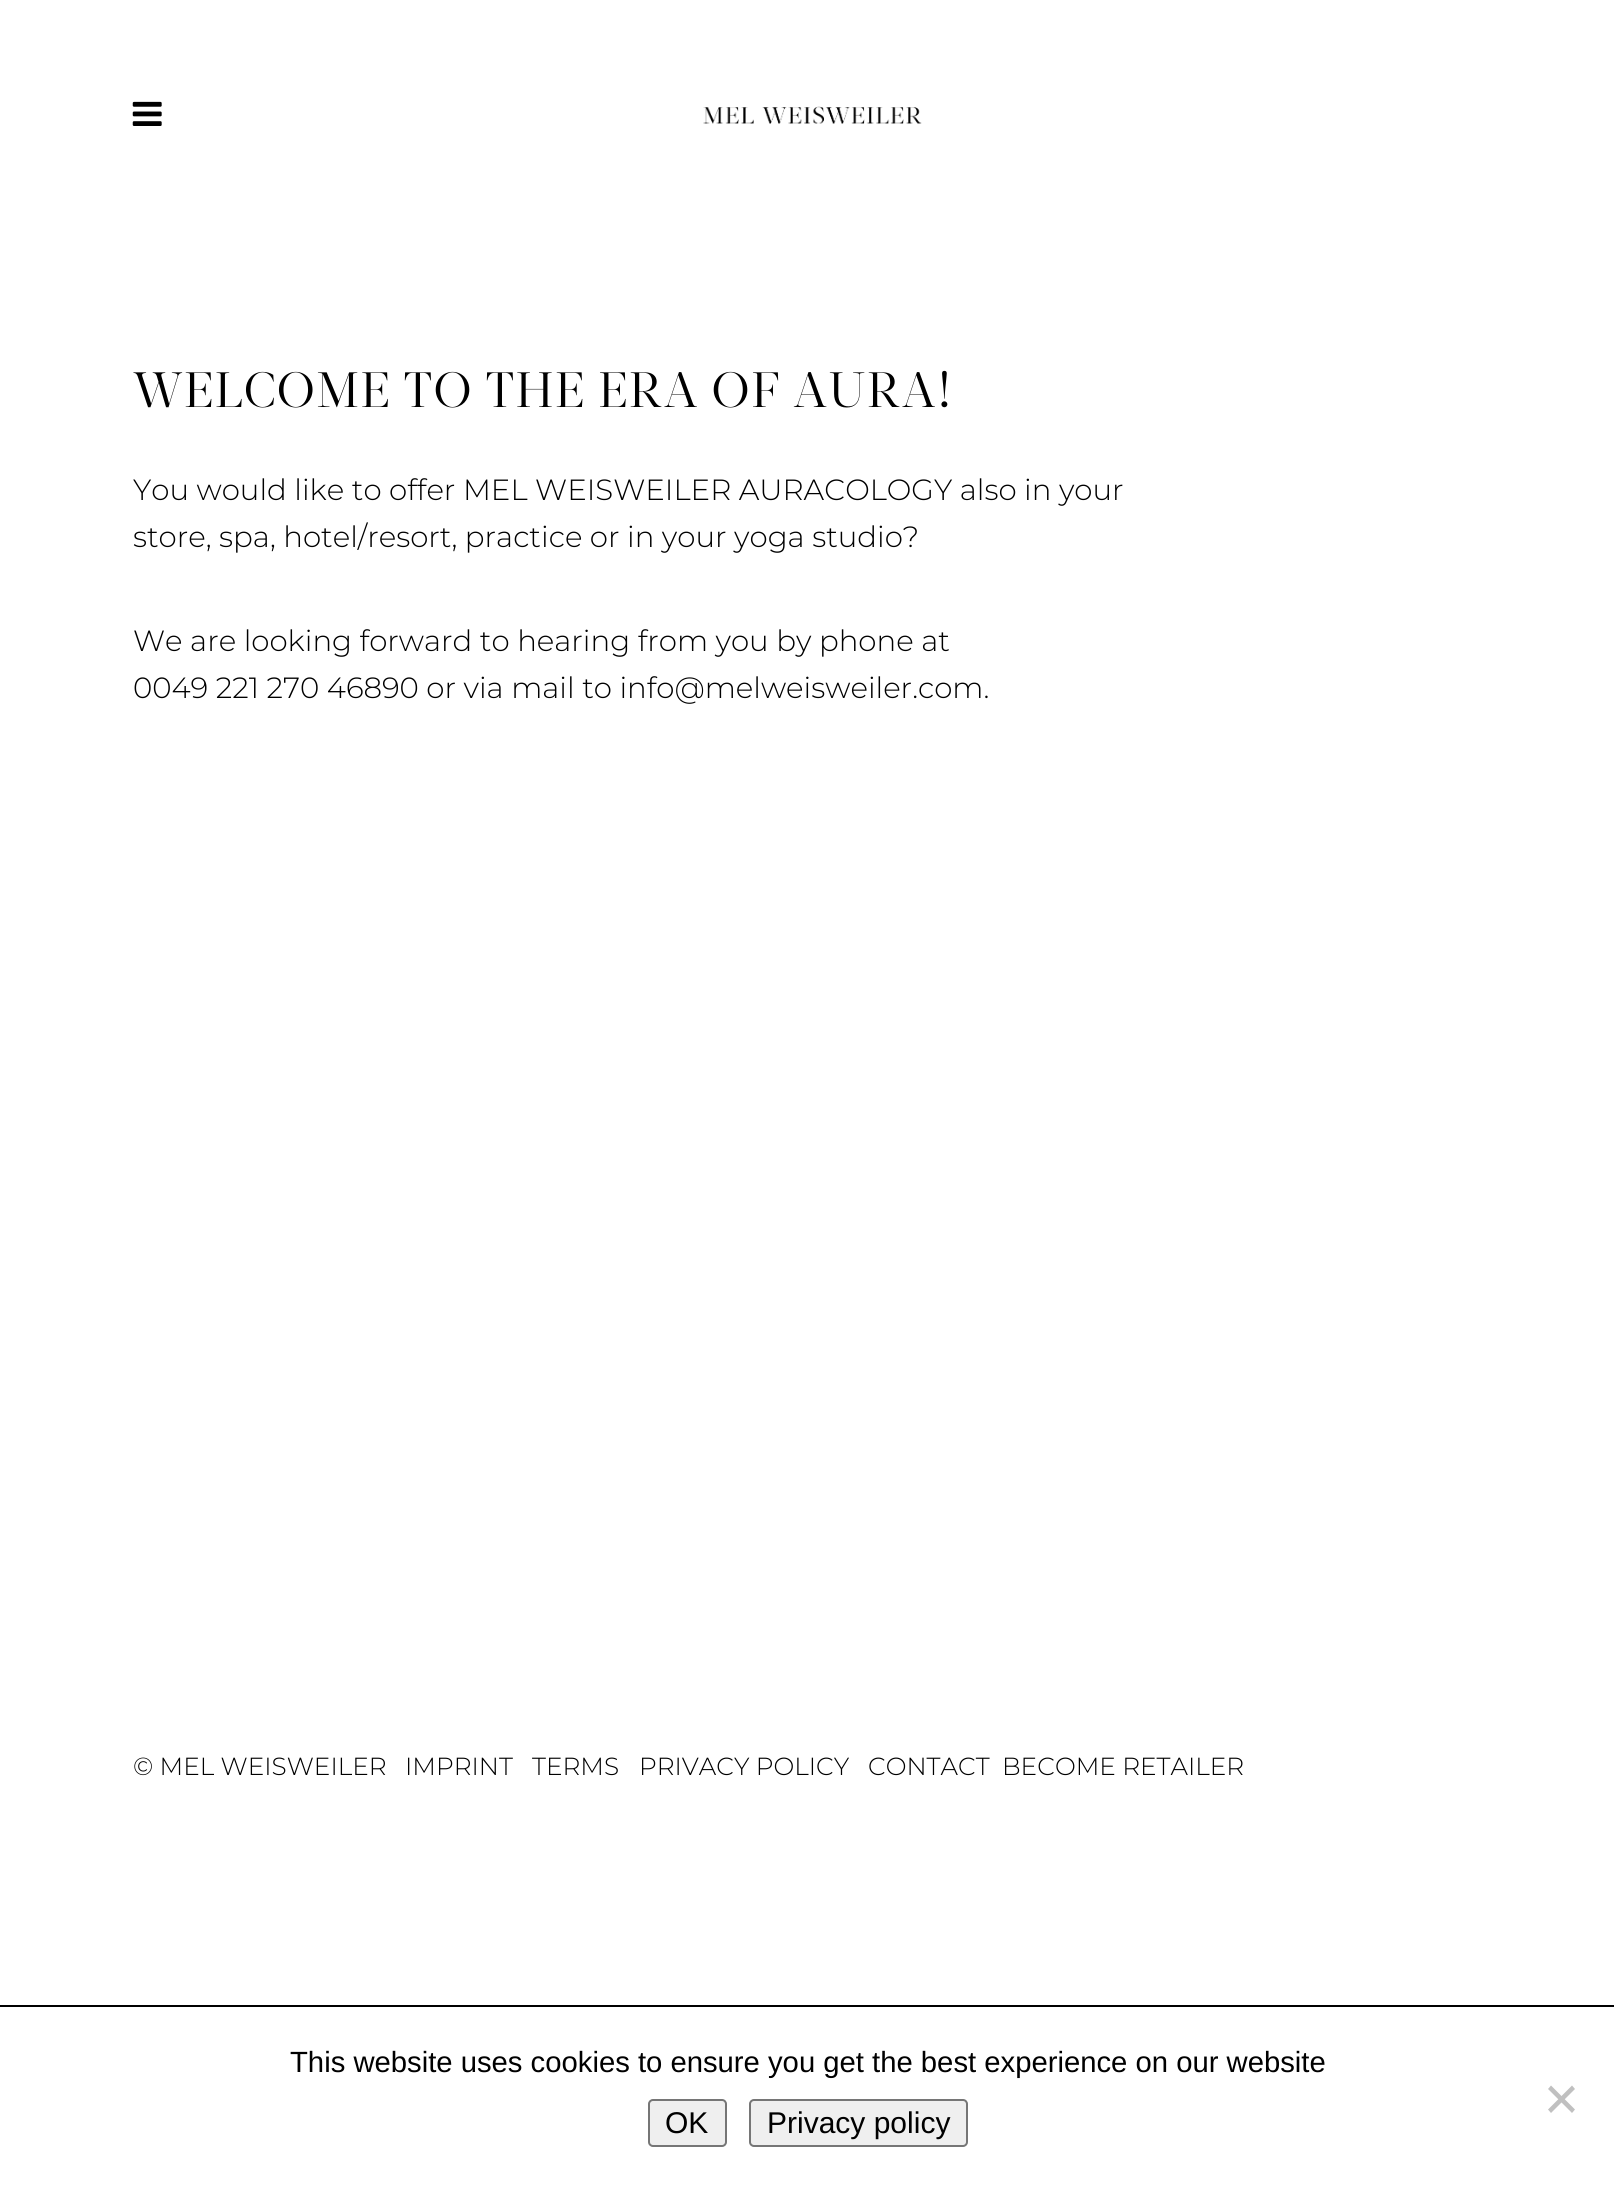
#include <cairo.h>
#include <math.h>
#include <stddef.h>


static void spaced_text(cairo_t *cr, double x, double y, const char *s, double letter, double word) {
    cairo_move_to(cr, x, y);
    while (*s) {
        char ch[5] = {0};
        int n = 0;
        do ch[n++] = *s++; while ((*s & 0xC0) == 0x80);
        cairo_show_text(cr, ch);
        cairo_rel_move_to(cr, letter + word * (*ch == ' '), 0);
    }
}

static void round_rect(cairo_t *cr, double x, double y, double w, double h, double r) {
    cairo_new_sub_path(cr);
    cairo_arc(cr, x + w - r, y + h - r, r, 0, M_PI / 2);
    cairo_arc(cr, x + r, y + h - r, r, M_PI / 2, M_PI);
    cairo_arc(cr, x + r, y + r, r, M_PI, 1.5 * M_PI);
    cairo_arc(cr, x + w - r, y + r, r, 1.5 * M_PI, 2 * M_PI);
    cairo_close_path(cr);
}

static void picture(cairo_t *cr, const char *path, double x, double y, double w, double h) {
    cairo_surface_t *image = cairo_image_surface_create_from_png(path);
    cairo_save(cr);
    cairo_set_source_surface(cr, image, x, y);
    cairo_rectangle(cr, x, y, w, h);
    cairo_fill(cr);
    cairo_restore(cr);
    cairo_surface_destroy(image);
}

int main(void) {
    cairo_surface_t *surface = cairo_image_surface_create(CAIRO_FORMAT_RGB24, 1614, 2191);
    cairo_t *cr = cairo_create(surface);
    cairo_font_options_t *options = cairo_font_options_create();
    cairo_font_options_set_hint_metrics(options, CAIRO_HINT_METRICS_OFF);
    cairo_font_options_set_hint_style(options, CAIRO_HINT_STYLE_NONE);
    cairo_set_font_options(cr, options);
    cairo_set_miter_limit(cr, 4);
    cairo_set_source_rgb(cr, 1, 1, 1);
    cairo_paint(cr);
    picture(cr, "img1.png", 132, 101, 30, 25);
    picture(cr, "img2.png", 703, 106, 219, 18);
    cairo_select_font_face(cr, "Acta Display", CAIRO_FONT_SLANT_NORMAL, CAIRO_FONT_WEIGHT_NORMAL);
    cairo_set_font_size(cr, 49.5);
    cairo_set_source_rgb(cr, 0, 0, 0);
    spaced_text(cr, 133, 407, "WELCOME TO THE ERA OF AURA!", 1.1, 0);
    cairo_select_font_face(cr, "Montserrat Light", CAIRO_FONT_SLANT_NORMAL, CAIRO_FONT_WEIGHT_NORMAL);
    cairo_set_font_size(cr, 29.25);
    cairo_move_to(cr, 133, 500);
    cairo_show_text(cr, "You would like to offer MEL WEISWEILER AURACOLOGY also in your");
    cairo_move_to(cr, 133, 547);
    cairo_show_text(cr, "store, spa, hotel/resort, practice or in your yoga studio?");
    cairo_move_to(cr, 133, 651);
    cairo_show_text(cr, "We are looking forward to hearing from you by phone at");
    cairo_move_to(cr, 133, 698);
    cairo_show_text(cr, "0049 221 270 46890 or via mail to info@melweisweiler.com.");
    cairo_set_font_size(cr, 24.75);
    cairo_move_to(cr, 133, 1775);
    cairo_show_text(cr, "© MEL WEISWEILER");
    cairo_move_to(cr, 405, 1775);
    cairo_show_text(cr, "IMPRINT");
    cairo_move_to(cr, 532, 1775);
    cairo_show_text(cr, "TERMS");
    cairo_move_to(cr, 639, 1775);
    cairo_show_text(cr, "PRIVACY POLICY");
    cairo_move_to(cr, 868, 1775);
    cairo_show_text(cr, "CONTACT");
    cairo_move_to(cr, 1002, 1775);
    cairo_show_text(cr, "BECOME RETAILER");
    cairo_rectangle(cr, 0, 2005, 1614, 2);
    cairo_fill(cr);
    cairo_select_font_face(cr, "Liberation Sans", CAIRO_FONT_SLANT_NORMAL, CAIRO_FONT_WEIGHT_NORMAL);
    cairo_set_font_size(cr, 29.25);
    cairo_move_to(cr, 290, 2072);
    cairo_show_text(cr, "This website uses cookies to ensure you get the best experience on our website");
    cairo_set_source_rgb(cr, 0.753, 0.753, 0.753);
    cairo_new_path(cr);
    cairo_move_to(cr, 1572, 2085.5);
    cairo_line_to(cr, 1575, 2089);
    cairo_line_to(cr, 1551, 2113);
    cairo_line_to(cr, 1548, 2109.5);
    cairo_close_path(cr);
    cairo_fill(cr);
    cairo_new_path(cr);
    cairo_move_to(cr, 1548, 2089);
    cairo_line_to(cr, 1551, 2085.5);
    cairo_line_to(cr, 1575, 2109.5);
    cairo_line_to(cr, 1572, 2113);
    cairo_close_path(cr);
    cairo_fill(cr);
    cairo_set_source_rgb(cr, 0.937, 0.937, 0.937);
    round_rect(cr, 649, 2100, 77, 46, 4);
    cairo_fill_preserve(cr);
    cairo_set_source_rgb(cr, 0.463, 0.463, 0.463);
    cairo_stroke(cr);
    cairo_set_font_size(cr, 30);
    cairo_set_source_rgb(cr, 0, 0, 0);
    cairo_move_to(cr, 665, 2133);
    cairo_show_text(cr, "OK");
    cairo_set_source_rgb(cr, 0.937, 0.937, 0.937);
    round_rect(cr, 750, 2100, 217, 46, 4);
    cairo_fill_preserve(cr);
    cairo_set_source_rgb(cr, 0.463, 0.463, 0.463);
    cairo_stroke(cr);
    cairo_set_source_rgb(cr, 0, 0, 0);
    cairo_move_to(cr, 767, 2133);
    cairo_show_text(cr, "Privacy policy");
    cairo_surface_write_to_png(surface, "page.png");
    cairo_font_options_destroy(options);
    cairo_destroy(cr);
    cairo_surface_destroy(surface);
    return 0;
}
